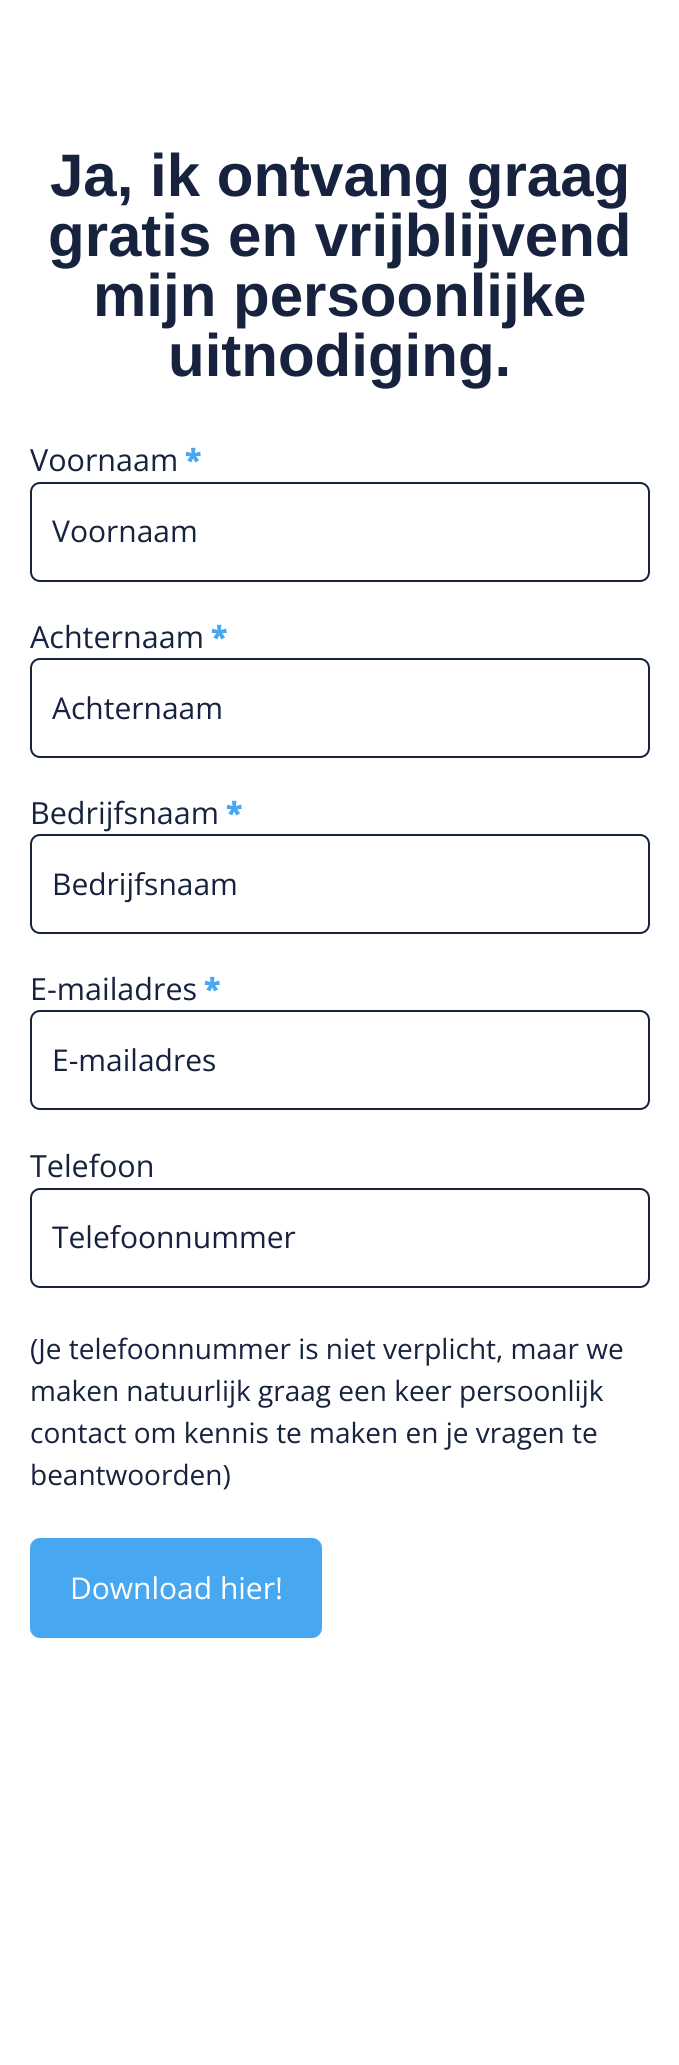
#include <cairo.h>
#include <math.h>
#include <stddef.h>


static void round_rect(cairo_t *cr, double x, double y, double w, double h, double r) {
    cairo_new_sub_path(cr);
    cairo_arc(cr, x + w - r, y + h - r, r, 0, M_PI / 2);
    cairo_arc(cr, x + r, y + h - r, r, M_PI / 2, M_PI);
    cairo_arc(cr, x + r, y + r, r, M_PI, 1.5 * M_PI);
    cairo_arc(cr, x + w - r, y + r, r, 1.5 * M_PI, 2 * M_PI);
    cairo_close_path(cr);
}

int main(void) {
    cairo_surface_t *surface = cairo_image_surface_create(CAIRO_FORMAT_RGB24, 679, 2065);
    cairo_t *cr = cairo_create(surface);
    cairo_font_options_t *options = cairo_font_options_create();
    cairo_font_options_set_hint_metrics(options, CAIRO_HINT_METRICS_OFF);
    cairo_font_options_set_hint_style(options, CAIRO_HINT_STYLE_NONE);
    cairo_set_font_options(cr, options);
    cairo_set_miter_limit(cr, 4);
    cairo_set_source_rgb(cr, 1, 1, 1);
    cairo_paint(cr);
    cairo_select_font_face(cr, "Liberation Sans", CAIRO_FONT_SLANT_NORMAL, CAIRO_FONT_WEIGHT_BOLD);
    cairo_set_font_size(cr, 60);
    cairo_set_source_rgb(cr, 0.09, 0.137, 0.243);
    cairo_move_to(cr, 50, 196);
    cairo_show_text(cr, "Ja, ik ontvang graag");
    cairo_move_to(cr, 48, 256);
    cairo_show_text(cr, "gratis en vrijblijvend");
    cairo_move_to(cr, 93, 316);
    cairo_show_text(cr, "mijn persoonlijke");
    cairo_move_to(cr, 168, 376);
    cairo_show_text(cr, "uitnodiging.");
    cairo_select_font_face(cr, "Open Sans", CAIRO_FONT_SLANT_NORMAL, CAIRO_FONT_WEIGHT_NORMAL);
    cairo_set_font_size(cr, 30.5);
    cairo_move_to(cr, 30, 471);
    cairo_show_text(cr, "Voornaam");
    cairo_select_font_face(cr, "Open Sans ExtraBold", CAIRO_FONT_SLANT_NORMAL, CAIRO_FONT_WEIGHT_NORMAL);
    cairo_set_source_rgb(cr, 0.282, 0.655, 0.945);
    cairo_move_to(cr, 185, 471);
    cairo_show_text(cr, "*");
    round_rect(cr, 31, 483, 618, 98, 9);
    cairo_set_source_rgb(cr, 0.09, 0.137, 0.243);
    cairo_stroke(cr);
    cairo_select_font_face(cr, "Open Sans", CAIRO_FONT_SLANT_NORMAL, CAIRO_FONT_WEIGHT_NORMAL);
    cairo_set_font_size(cr, 30);
    cairo_move_to(cr, 52, 542);
    cairo_show_text(cr, "Voornaam");
    cairo_set_font_size(cr, 30.5);
    cairo_move_to(cr, 30, 648);
    cairo_show_text(cr, "Achternaam");
    cairo_select_font_face(cr, "Open Sans ExtraBold", CAIRO_FONT_SLANT_NORMAL, CAIRO_FONT_WEIGHT_NORMAL);
    cairo_set_source_rgb(cr, 0.282, 0.655, 0.945);
    cairo_move_to(cr, 211, 648);
    cairo_show_text(cr, "*");
    round_rect(cr, 31, 659, 618, 98, 9);
    cairo_set_source_rgb(cr, 0.09, 0.137, 0.243);
    cairo_stroke(cr);
    cairo_select_font_face(cr, "Open Sans", CAIRO_FONT_SLANT_NORMAL, CAIRO_FONT_WEIGHT_NORMAL);
    cairo_set_font_size(cr, 30);
    cairo_move_to(cr, 52, 719);
    cairo_show_text(cr, "Achternaam");
    cairo_set_font_size(cr, 30.5);
    cairo_move_to(cr, 30, 824);
    cairo_show_text(cr, "Bedrijfsnaam");
    cairo_select_font_face(cr, "Open Sans ExtraBold", CAIRO_FONT_SLANT_NORMAL, CAIRO_FONT_WEIGHT_NORMAL);
    cairo_set_source_rgb(cr, 0.282, 0.655, 0.945);
    cairo_move_to(cr, 226, 824);
    cairo_show_text(cr, "*");
    round_rect(cr, 31, 835, 618, 98, 9);
    cairo_set_source_rgb(cr, 0.09, 0.137, 0.243);
    cairo_stroke(cr);
    cairo_select_font_face(cr, "Open Sans", CAIRO_FONT_SLANT_NORMAL, CAIRO_FONT_WEIGHT_NORMAL);
    cairo_set_font_size(cr, 30);
    cairo_move_to(cr, 52, 895);
    cairo_show_text(cr, "Bedrijfsnaam");
    cairo_set_font_size(cr, 30.5);
    cairo_move_to(cr, 30, 1000);
    cairo_show_text(cr, "E-mailadres");
    cairo_select_font_face(cr, "Open Sans ExtraBold", CAIRO_FONT_SLANT_NORMAL, CAIRO_FONT_WEIGHT_NORMAL);
    cairo_set_source_rgb(cr, 0.282, 0.655, 0.945);
    cairo_move_to(cr, 204, 1000);
    cairo_show_text(cr, "*");
    round_rect(cr, 31, 1011, 618, 98, 9);
    cairo_set_source_rgb(cr, 0.09, 0.137, 0.243);
    cairo_stroke(cr);
    cairo_select_font_face(cr, "Open Sans", CAIRO_FONT_SLANT_NORMAL, CAIRO_FONT_WEIGHT_NORMAL);
    cairo_set_font_size(cr, 30);
    cairo_move_to(cr, 52, 1071);
    cairo_show_text(cr, "E-mailadres");
    cairo_set_font_size(cr, 30.5);
    cairo_move_to(cr, 30, 1177);
    cairo_show_text(cr, "Telefoon");
    round_rect(cr, 31, 1189, 618, 98, 9);
    cairo_stroke(cr);
    cairo_set_font_size(cr, 30);
    cairo_move_to(cr, 52, 1248);
    cairo_show_text(cr, "Telefoonnummer");
    cairo_set_font_size(cr, 28);
    cairo_move_to(cr, 30, 1359);
    cairo_show_text(cr, "(Je telefoonnummer is niet verplicht, maar we");
    cairo_move_to(cr, 30, 1401);
    cairo_show_text(cr, "maken natuurlijk graag een keer persoonlijk");
    cairo_move_to(cr, 30, 1443);
    cairo_show_text(cr, "contact om kennis te maken en je vragen te");
    cairo_move_to(cr, 30, 1485);
    cairo_show_text(cr, "beantwoorden)");
    cairo_set_source_rgb(cr, 0.282, 0.655, 0.945);
    round_rect(cr, 30, 1538, 292, 100, 10);
    cairo_fill(cr);
    cairo_set_font_size(cr, 30);
    cairo_set_source_rgb(cr, 1, 1, 1);
    cairo_move_to(cr, 70, 1599);
    cairo_show_text(cr, "Download hier!");
    cairo_surface_write_to_png(surface, "page.png");
    cairo_font_options_destroy(options);
    cairo_destroy(cr);
    cairo_surface_destroy(surface);
    return 0;
}
